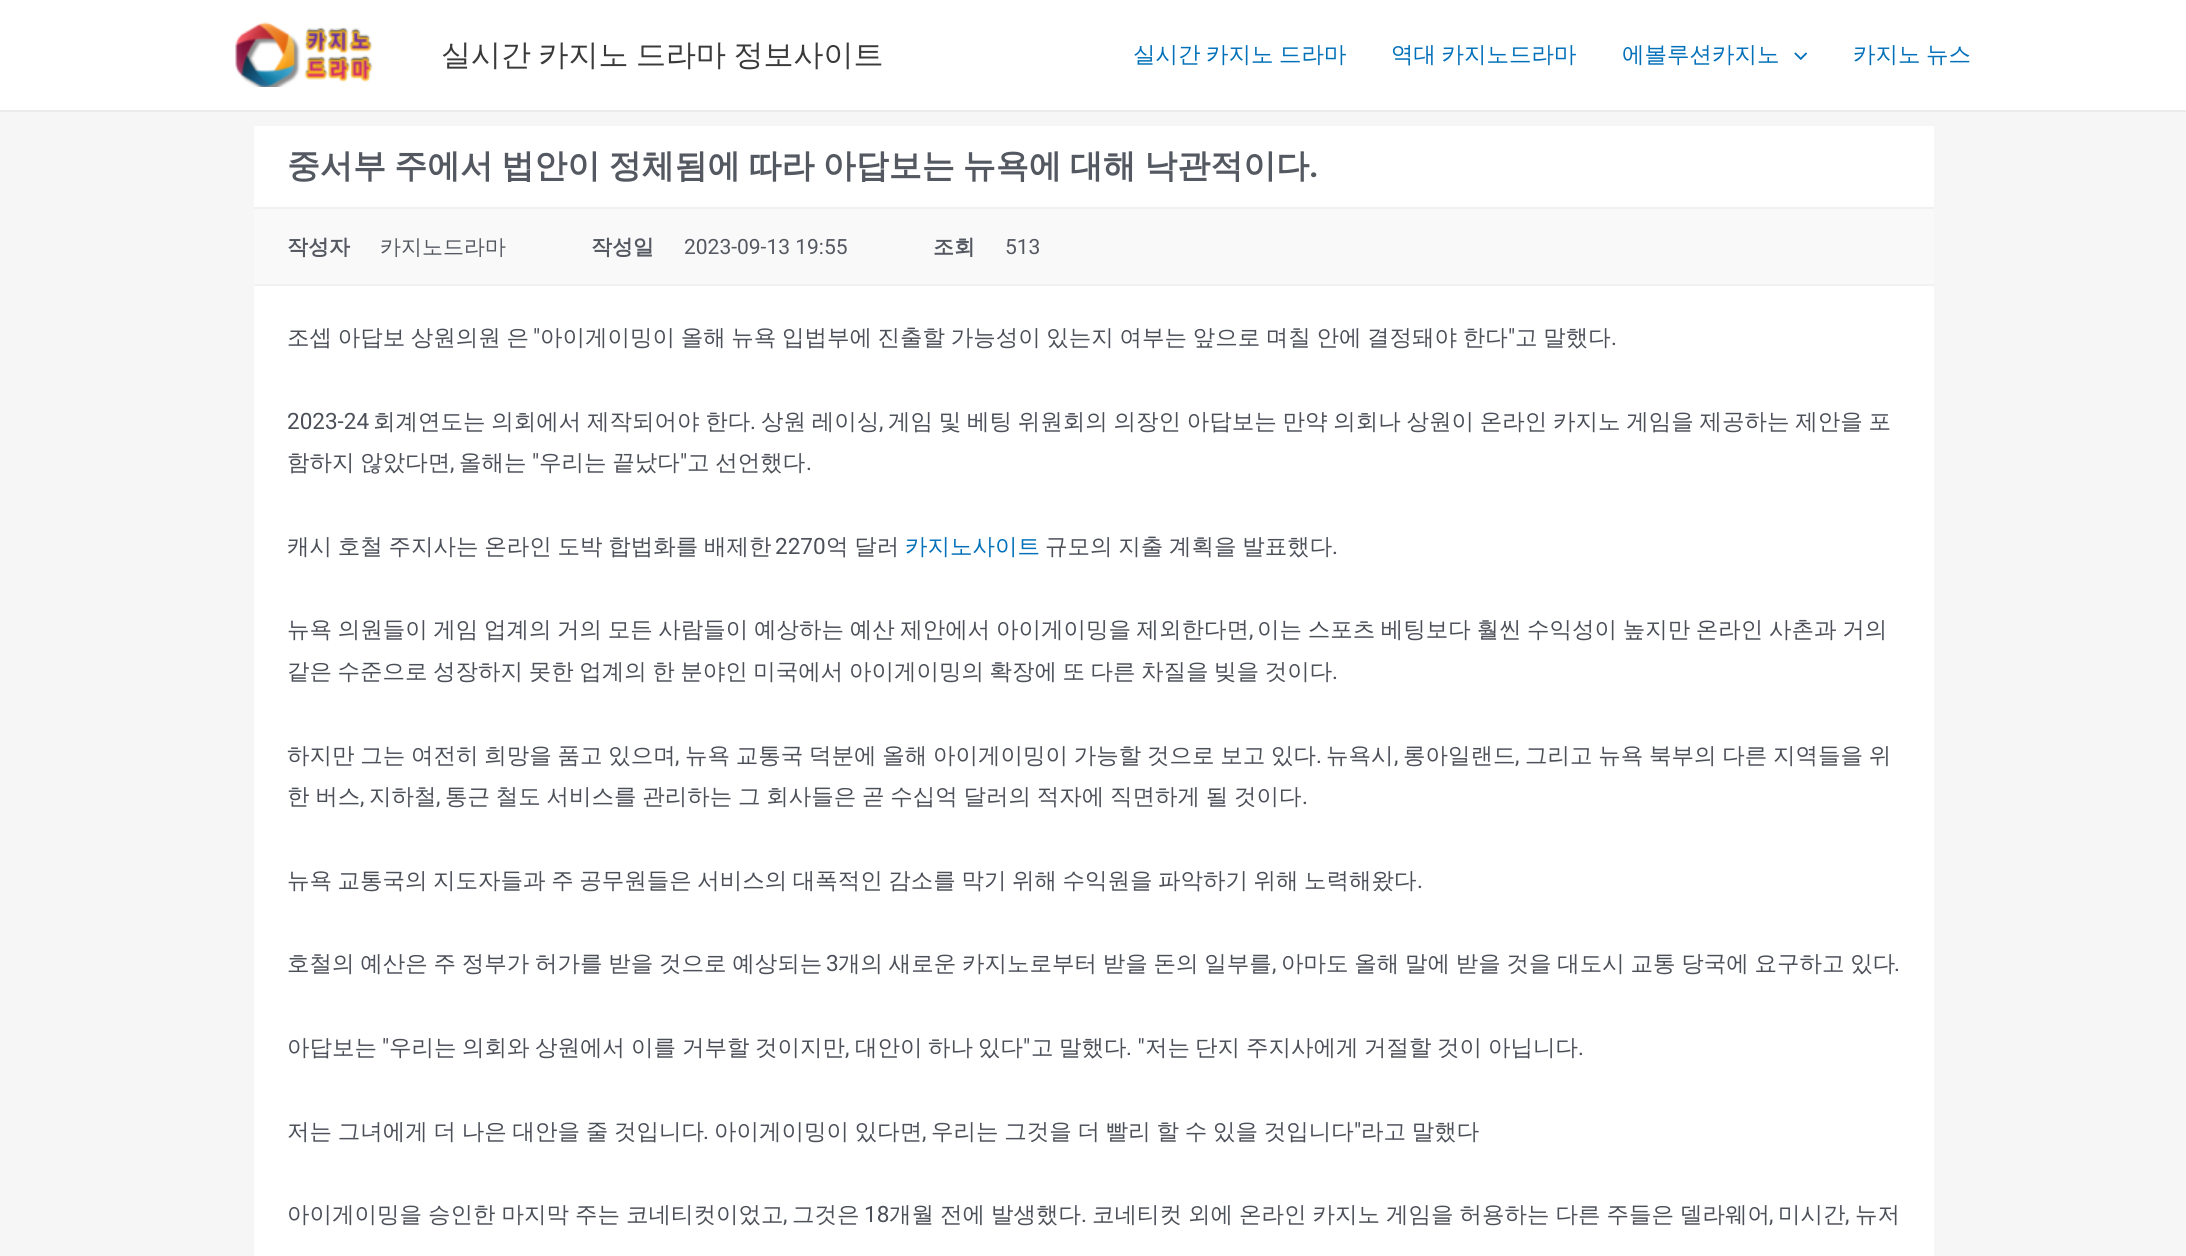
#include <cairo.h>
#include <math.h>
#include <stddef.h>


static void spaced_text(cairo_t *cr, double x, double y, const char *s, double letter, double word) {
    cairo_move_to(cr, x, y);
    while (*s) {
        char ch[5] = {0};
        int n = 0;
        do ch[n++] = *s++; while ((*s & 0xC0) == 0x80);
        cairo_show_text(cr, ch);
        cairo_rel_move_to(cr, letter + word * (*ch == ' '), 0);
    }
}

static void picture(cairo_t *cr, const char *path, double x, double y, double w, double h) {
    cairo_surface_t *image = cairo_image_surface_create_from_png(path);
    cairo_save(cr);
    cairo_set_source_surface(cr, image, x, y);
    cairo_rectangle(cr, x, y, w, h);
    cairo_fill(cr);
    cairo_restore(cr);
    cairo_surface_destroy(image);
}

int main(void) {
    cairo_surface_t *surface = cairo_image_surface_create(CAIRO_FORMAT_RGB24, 2186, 1256);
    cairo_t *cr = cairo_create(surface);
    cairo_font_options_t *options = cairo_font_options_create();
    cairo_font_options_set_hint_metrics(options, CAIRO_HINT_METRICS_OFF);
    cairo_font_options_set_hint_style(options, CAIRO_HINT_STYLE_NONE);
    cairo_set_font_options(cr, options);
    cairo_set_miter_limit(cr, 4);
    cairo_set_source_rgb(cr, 0.961, 0.961, 0.961);
    cairo_paint(cr);
    cairo_set_source_rgb(cr, 1, 1, 1);
    cairo_rectangle(cr, 0, 0, 2186, 110);
    cairo_fill(cr);
    cairo_set_source_rgb(cr, 0.918, 0.918, 0.918);
    cairo_rectangle(cr, 0, 110, 2186, 2);
    cairo_fill(cr);
    picture(cr, "img1.png", 235, 22, 138, 65);
    cairo_select_font_face(cr, "WenQuanYi Zen Hei Medium", CAIRO_FONT_SLANT_NORMAL, CAIRO_FONT_WEIGHT_NORMAL);
    cairo_set_font_size(cr, 30);
    cairo_set_source_rgb(cr, 0.227, 0.227, 0.227);
    spaced_text(cr, 441, 65, "실시간 카지노 드라마 정보사이트", 0, -1.5);
    cairo_set_font_size(cr, 22.5);
    cairo_set_source_rgb(cr, 0.004, 0.439, 0.725);
    spaced_text(cr, 1133, 62, "실시간 카지노 드라마", 0, -1.2);
    spaced_text(cr, 1391, 62, "역대 카지노드라마", 0, -1.2);
    cairo_move_to(cr, 1622, 62);
    cairo_show_text(cr, "에볼루션카지노");
    picture(cr, "img2.png", 1794, 52, 14, 8);
    spaced_text(cr, 1853, 62, "카지노 뉴스", 0, -1.2);
    cairo_set_source_rgb(cr, 1, 1, 1);
    cairo_rectangle(cr, 254, 126, 1680, 1130);
    cairo_fill(cr);
    cairo_select_font_face(cr, "WenQuanYi Zen Hei", CAIRO_FONT_SLANT_NORMAL, CAIRO_FONT_WEIGHT_BOLD);
    cairo_set_font_size(cr, 33);
    cairo_set_source_rgb(cr, 0.329, 0.345, 0.38);
    spaced_text(cr, 287, 177, "중서부 주에서 법안이 정체됨에 따라 아답보는 뉴욕에 대해 낙관적이다", 0, -1.75);
    cairo_select_font_face(cr, "Roboto", CAIRO_FONT_SLANT_NORMAL, CAIRO_FONT_WEIGHT_BOLD);
    cairo_move_to(cr, 1309, 177);
    cairo_show_text(cr, ".");
    cairo_set_source_rgb(cr, 0.976, 0.976, 0.976);
    cairo_rectangle(cr, 254, 209, 1680, 75);
    cairo_fill(cr);
    cairo_set_source_rgb(cr, 0.945, 0.945, 0.945);
    cairo_rectangle(cr, 254, 207, 1680, 2);
    cairo_fill(cr);
    cairo_rectangle(cr, 254, 284, 1680, 2);
    cairo_fill(cr);
    cairo_select_font_face(cr, "WenQuanYi Zen Hei", CAIRO_FONT_SLANT_NORMAL, CAIRO_FONT_WEIGHT_BOLD);
    cairo_set_font_size(cr, 21);
    cairo_set_source_rgb(cr, 0.329, 0.345, 0.38);
    cairo_move_to(cr, 287, 254);
    cairo_show_text(cr, "작성자");
    cairo_select_font_face(cr, "WenQuanYi Zen Hei Medium", CAIRO_FONT_SLANT_NORMAL, CAIRO_FONT_WEIGHT_NORMAL);
    cairo_move_to(cr, 380, 254);
    cairo_show_text(cr, "카지노드라마");
    cairo_select_font_face(cr, "WenQuanYi Zen Hei", CAIRO_FONT_SLANT_NORMAL, CAIRO_FONT_WEIGHT_BOLD);
    cairo_move_to(cr, 591, 254);
    cairo_show_text(cr, "작성일");
    cairo_select_font_face(cr, "Roboto", CAIRO_FONT_SLANT_NORMAL, CAIRO_FONT_WEIGHT_NORMAL);
    cairo_move_to(cr, 684, 254);
    cairo_show_text(cr, "2023-09-13 19:55");
    cairo_select_font_face(cr, "WenQuanYi Zen Hei", CAIRO_FONT_SLANT_NORMAL, CAIRO_FONT_WEIGHT_BOLD);
    cairo_move_to(cr, 933, 254);
    cairo_show_text(cr, "조회");
    cairo_select_font_face(cr, "Roboto", CAIRO_FONT_SLANT_NORMAL, CAIRO_FONT_WEIGHT_NORMAL);
    cairo_move_to(cr, 1005, 254);
    cairo_show_text(cr, "513");
    cairo_select_font_face(cr, "WenQuanYi Zen Hei Medium", CAIRO_FONT_SLANT_NORMAL, CAIRO_FONT_WEIGHT_NORMAL);
    cairo_set_font_size(cr, 22.5);
    cairo_set_source_rgb(cr, 0.294, 0.31, 0.345);
    spaced_text(cr, 287, 345, "조셉 아답보 상원의원 은", 0, -1.1);
    cairo_select_font_face(cr, "Roboto", CAIRO_FONT_SLANT_NORMAL, CAIRO_FONT_WEIGHT_NORMAL);
    cairo_move_to(cr, 533, 345);
    cairo_show_text(cr, "\"");
    cairo_select_font_face(cr, "WenQuanYi Zen Hei Medium", CAIRO_FONT_SLANT_NORMAL, CAIRO_FONT_WEIGHT_NORMAL);
    spaced_text(cr, 540, 345, "아이게이밍이 올해 뉴욕 입법부에 진출할 가능성이 있는지 여부는 앞으로 며칠 안에 결정돼야 한다", 0, -1.1);
    cairo_select_font_face(cr, "Roboto", CAIRO_FONT_SLANT_NORMAL, CAIRO_FONT_WEIGHT_NORMAL);
    cairo_move_to(cr, 1508, 345);
    cairo_show_text(cr, "\"");
    cairo_select_font_face(cr, "WenQuanYi Zen Hei Medium", CAIRO_FONT_SLANT_NORMAL, CAIRO_FONT_WEIGHT_NORMAL);
    spaced_text(cr, 1515, 345, "고 말했다", 0, -1.1);
    cairo_select_font_face(cr, "Roboto", CAIRO_FONT_SLANT_NORMAL, CAIRO_FONT_WEIGHT_NORMAL);
    cairo_move_to(cr, 1611, 345);
    cairo_show_text(cr, ".");
    cairo_move_to(cr, 287, 429);
    cairo_show_text(cr, "2023-24");
    cairo_select_font_face(cr, "WenQuanYi Zen Hei Medium", CAIRO_FONT_SLANT_NORMAL, CAIRO_FONT_WEIGHT_NORMAL);
    spaced_text(cr, 373, 429, "회계연도는 의회에서 제작되어야 한다", 0, -1);
    cairo_select_font_face(cr, "Roboto", CAIRO_FONT_SLANT_NORMAL, CAIRO_FONT_WEIGHT_NORMAL);
    cairo_move_to(cr, 750, 429);
    cairo_show_text(cr, ".");
    cairo_select_font_face(cr, "WenQuanYi Zen Hei Medium", CAIRO_FONT_SLANT_NORMAL, CAIRO_FONT_WEIGHT_NORMAL);
    spaced_text(cr, 761, 429, "상원 레이싱", 0, -1);
    cairo_select_font_face(cr, "Roboto", CAIRO_FONT_SLANT_NORMAL, CAIRO_FONT_WEIGHT_NORMAL);
    cairo_move_to(cr, 879, 429);
    cairo_show_text(cr, ",");
    cairo_select_font_face(cr, "WenQuanYi Zen Hei Medium", CAIRO_FONT_SLANT_NORMAL, CAIRO_FONT_WEIGHT_NORMAL);
    spaced_text(cr, 888, 429, "게임 및 베팅 위원회의 의장인 아답보는 만약 의회나 상원이 온라인 카지노 게임을 제공하는 제안을 포", 0, -1);
    spaced_text(cr, 287, 470, "함하지 않았다면", 0, -1);
    cairo_select_font_face(cr, "Roboto", CAIRO_FONT_SLANT_NORMAL, CAIRO_FONT_WEIGHT_NORMAL);
    cairo_move_to(cr, 450, 470);
    cairo_show_text(cr, ",");
    cairo_select_font_face(cr, "WenQuanYi Zen Hei Medium", CAIRO_FONT_SLANT_NORMAL, CAIRO_FONT_WEIGHT_NORMAL);
    cairo_move_to(cr, 459, 470);
    cairo_show_text(cr, "올해는");
    cairo_select_font_face(cr, "Roboto", CAIRO_FONT_SLANT_NORMAL, CAIRO_FONT_WEIGHT_NORMAL);
    cairo_move_to(cr, 532, 470);
    cairo_show_text(cr, "\"");
    cairo_select_font_face(cr, "WenQuanYi Zen Hei Medium", CAIRO_FONT_SLANT_NORMAL, CAIRO_FONT_WEIGHT_NORMAL);
    spaced_text(cr, 539, 470, "우리는 끝났다", 0, -1);
    cairo_select_font_face(cr, "Roboto", CAIRO_FONT_SLANT_NORMAL, CAIRO_FONT_WEIGHT_NORMAL);
    cairo_move_to(cr, 680, 470);
    cairo_show_text(cr, "\"");
    cairo_select_font_face(cr, "WenQuanYi Zen Hei Medium", CAIRO_FONT_SLANT_NORMAL, CAIRO_FONT_WEIGHT_NORMAL);
    spaced_text(cr, 687, 470, "고 선언했다", 0, -1);
    cairo_select_font_face(cr, "Roboto", CAIRO_FONT_SLANT_NORMAL, CAIRO_FONT_WEIGHT_NORMAL);
    cairo_move_to(cr, 806, 470);
    cairo_show_text(cr, ".");
    cairo_select_font_face(cr, "WenQuanYi Zen Hei Medium", CAIRO_FONT_SLANT_NORMAL, CAIRO_FONT_WEIGHT_NORMAL);
    spaced_text(cr, 287, 554, "캐시 호철 주지사는 온라인 도박 합법화를 배제한", 0, -1);
    cairo_select_font_face(cr, "Roboto", CAIRO_FONT_SLANT_NORMAL, CAIRO_FONT_WEIGHT_NORMAL);
    cairo_move_to(cr, 775, 554);
    cairo_show_text(cr, "2270");
    cairo_select_font_face(cr, "WenQuanYi Zen Hei Medium", CAIRO_FONT_SLANT_NORMAL, CAIRO_FONT_WEIGHT_NORMAL);
    spaced_text(cr, 826, 554, "억 달러", 0, -1);
    cairo_set_source_rgb(cr, 0.004, 0.439, 0.725);
    cairo_move_to(cr, 905, 554);
    cairo_show_text(cr, "카지노사이트");
    cairo_set_source_rgb(cr, 0.294, 0.31, 0.345);
    spaced_text(cr, 1045, 554, "규모의 지출 계획을 발표했다", 0, -1);
    cairo_select_font_face(cr, "Roboto", CAIRO_FONT_SLANT_NORMAL, CAIRO_FONT_WEIGHT_NORMAL);
    cairo_move_to(cr, 1332, 554);
    cairo_show_text(cr, ".");
    cairo_select_font_face(cr, "WenQuanYi Zen Hei Medium", CAIRO_FONT_SLANT_NORMAL, CAIRO_FONT_WEIGHT_NORMAL);
    spaced_text(cr, 287, 637, "뉴욕 의원들이 게임 업계의 거의 모든 사람들이 예상하는 예산 제안에서 아이게이밍을 제외한다면", 0, -1.1);
    cairo_select_font_face(cr, "Roboto", CAIRO_FONT_SLANT_NORMAL, CAIRO_FONT_WEIGHT_NORMAL);
    cairo_move_to(cr, 1249, 637);
    cairo_show_text(cr, ",");
    cairo_select_font_face(cr, "WenQuanYi Zen Hei Medium", CAIRO_FONT_SLANT_NORMAL, CAIRO_FONT_WEIGHT_NORMAL);
    spaced_text(cr, 1257, 637, "이는 스포츠 베팅보다 훨씬 수익성이 높지만 온라인 사촌과 거의", 0, -1.1);
    spaced_text(cr, 287, 679, "같은 수준으로 성장하지 못한 업계의 한 분야인 미국에서 아이게이밍의 확장에 또 다른 차질을 빚을 것이다", 0, -1.2);
    cairo_select_font_face(cr, "Roboto", CAIRO_FONT_SLANT_NORMAL, CAIRO_FONT_WEIGHT_NORMAL);
    cairo_move_to(cr, 1332, 679);
    cairo_show_text(cr, ".");
    cairo_select_font_face(cr, "WenQuanYi Zen Hei Medium", CAIRO_FONT_SLANT_NORMAL, CAIRO_FONT_WEIGHT_NORMAL);
    spaced_text(cr, 287, 763, "하지만 그는 여전히 희망을 품고 있으며", 0, -1);
    cairo_select_font_face(cr, "Roboto", CAIRO_FONT_SLANT_NORMAL, CAIRO_FONT_WEIGHT_NORMAL);
    cairo_move_to(cr, 675, 763);
    cairo_show_text(cr, ",");
    cairo_select_font_face(cr, "WenQuanYi Zen Hei Medium", CAIRO_FONT_SLANT_NORMAL, CAIRO_FONT_WEIGHT_NORMAL);
    spaced_text(cr, 685, 763, "뉴욕 교통국 덕분에 올해 아이게이밍이 가능할 것으로 보고 있다", 0, -1);
    cairo_select_font_face(cr, "Roboto", CAIRO_FONT_SLANT_NORMAL, CAIRO_FONT_WEIGHT_NORMAL);
    cairo_move_to(cr, 1316, 763);
    cairo_show_text(cr, ".");
    cairo_select_font_face(cr, "WenQuanYi Zen Hei Medium", CAIRO_FONT_SLANT_NORMAL, CAIRO_FONT_WEIGHT_NORMAL);
    cairo_move_to(cr, 1326, 763);
    cairo_show_text(cr, "뉴욕시");
    cairo_select_font_face(cr, "Roboto", CAIRO_FONT_SLANT_NORMAL, CAIRO_FONT_WEIGHT_NORMAL);
    cairo_move_to(cr, 1394, 763);
    cairo_show_text(cr, ",");
    cairo_select_font_face(cr, "WenQuanYi Zen Hei Medium", CAIRO_FONT_SLANT_NORMAL, CAIRO_FONT_WEIGHT_NORMAL);
    cairo_move_to(cr, 1403, 763);
    cairo_show_text(cr, "롱아일랜드");
    cairo_select_font_face(cr, "Roboto", CAIRO_FONT_SLANT_NORMAL, CAIRO_FONT_WEIGHT_NORMAL);
    cairo_move_to(cr, 1515, 763);
    cairo_show_text(cr, ",");
    cairo_select_font_face(cr, "WenQuanYi Zen Hei Medium", CAIRO_FONT_SLANT_NORMAL, CAIRO_FONT_WEIGHT_NORMAL);
    spaced_text(cr, 1525, 763, "그리고 뉴욕 북부의 다른 지역들을 위", 0, -1);
    spaced_text(cr, 287, 804, "한 버스", 0, -1);
    cairo_select_font_face(cr, "Roboto", CAIRO_FONT_SLANT_NORMAL, CAIRO_FONT_WEIGHT_NORMAL);
    cairo_move_to(cr, 360, 804);
    cairo_show_text(cr, ",");
    cairo_select_font_face(cr, "WenQuanYi Zen Hei Medium", CAIRO_FONT_SLANT_NORMAL, CAIRO_FONT_WEIGHT_NORMAL);
    cairo_move_to(cr, 369, 804);
    cairo_show_text(cr, "지하철");
    cairo_select_font_face(cr, "Roboto", CAIRO_FONT_SLANT_NORMAL, CAIRO_FONT_WEIGHT_NORMAL);
    cairo_move_to(cr, 436, 804);
    cairo_show_text(cr, ",");
    cairo_select_font_face(cr, "WenQuanYi Zen Hei Medium", CAIRO_FONT_SLANT_NORMAL, CAIRO_FONT_WEIGHT_NORMAL);
    spaced_text(cr, 445, 804, "통근 철도 서비스를 관리하는 그 회사들은 곧 수십억 달러의 적자에 직면하게 될 것이다", 0, -1);
    cairo_select_font_face(cr, "Roboto", CAIRO_FONT_SLANT_NORMAL, CAIRO_FONT_WEIGHT_NORMAL);
    cairo_move_to(cr, 1302, 804);
    cairo_show_text(cr, ".");
    cairo_select_font_face(cr, "WenQuanYi Zen Hei Medium", CAIRO_FONT_SLANT_NORMAL, CAIRO_FONT_WEIGHT_NORMAL);
    spaced_text(cr, 287, 888, "뉴욕 교통국의 지도자들과 주 공무원들은 서비스의 대폭적인 감소를 막기 위해 수익원을 파악하기 위해 노력해왔다", 0, -1.2);
    cairo_select_font_face(cr, "Roboto", CAIRO_FONT_SLANT_NORMAL, CAIRO_FONT_WEIGHT_NORMAL);
    cairo_move_to(cr, 1417, 888);
    cairo_show_text(cr, ".");
    cairo_select_font_face(cr, "WenQuanYi Zen Hei Medium", CAIRO_FONT_SLANT_NORMAL, CAIRO_FONT_WEIGHT_NORMAL);
    spaced_text(cr, 287, 971, "호철의 예산은 주 정부가 허가를 받을 것으로 예상되는", 0, -1);
    cairo_select_font_face(cr, "Roboto", CAIRO_FONT_SLANT_NORMAL, CAIRO_FONT_WEIGHT_NORMAL);
    cairo_move_to(cr, 826, 971);
    cairo_show_text(cr, "3");
    cairo_select_font_face(cr, "WenQuanYi Zen Hei Medium", CAIRO_FONT_SLANT_NORMAL, CAIRO_FONT_WEIGHT_NORMAL);
    spaced_text(cr, 838, 971, "개의 새로운 카지노로부터 받을 돈의 일부를", 0, -1);
    cairo_select_font_face(cr, "Roboto", CAIRO_FONT_SLANT_NORMAL, CAIRO_FONT_WEIGHT_NORMAL);
    cairo_move_to(cr, 1272, 971);
    cairo_show_text(cr, ",");
    cairo_select_font_face(cr, "WenQuanYi Zen Hei Medium", CAIRO_FONT_SLANT_NORMAL, CAIRO_FONT_WEIGHT_NORMAL);
    spaced_text(cr, 1281, 971, "아마도 올해 말에 받을 것을 대도시 교통 당국에 요구하고 있다", 0, -1);
    cairo_select_font_face(cr, "Roboto", CAIRO_FONT_SLANT_NORMAL, CAIRO_FONT_WEIGHT_NORMAL);
    cairo_move_to(cr, 1894, 971);
    cairo_show_text(cr, ".");
    cairo_select_font_face(cr, "WenQuanYi Zen Hei Medium", CAIRO_FONT_SLANT_NORMAL, CAIRO_FONT_WEIGHT_NORMAL);
    cairo_move_to(cr, 287, 1055);
    cairo_show_text(cr, "아답보는");
    cairo_select_font_face(cr, "Roboto", CAIRO_FONT_SLANT_NORMAL, CAIRO_FONT_WEIGHT_NORMAL);
    cairo_move_to(cr, 382, 1055);
    cairo_show_text(cr, "\"");
    cairo_select_font_face(cr, "WenQuanYi Zen Hei Medium", CAIRO_FONT_SLANT_NORMAL, CAIRO_FONT_WEIGHT_NORMAL);
    cairo_move_to(cr, 389, 1055);
    cairo_show_text(cr, "우리는");
    cairo_move_to(cr, 462, 1055);
    cairo_show_text(cr, "의회와");
    cairo_move_to(cr, 535, 1055);
    cairo_show_text(cr, "상원에서");
    cairo_move_to(cr, 631, 1055);
    cairo_show_text(cr, "이를");
    cairo_move_to(cr, 682, 1055);
    cairo_show_text(cr, "거부할");
    cairo_move_to(cr, 755, 1055);
    cairo_show_text(cr, "것이지만");
    cairo_select_font_face(cr, "Roboto", CAIRO_FONT_SLANT_NORMAL, CAIRO_FONT_WEIGHT_NORMAL);
    cairo_move_to(cr, 845, 1055);
    cairo_show_text(cr, ",");
    cairo_select_font_face(cr, "WenQuanYi Zen Hei Medium", CAIRO_FONT_SLANT_NORMAL, CAIRO_FONT_WEIGHT_NORMAL);
    cairo_move_to(cr, 855, 1055);
    cairo_show_text(cr, "대안이");
    cairo_move_to(cr, 928, 1055);
    cairo_show_text(cr, "하나");
    cairo_move_to(cr, 978, 1055);
    cairo_show_text(cr, "있다");
    cairo_select_font_face(cr, "Roboto", CAIRO_FONT_SLANT_NORMAL, CAIRO_FONT_WEIGHT_NORMAL);
    cairo_move_to(cr, 1023, 1055);
    cairo_show_text(cr, "\"");
    cairo_select_font_face(cr, "WenQuanYi Zen Hei Medium", CAIRO_FONT_SLANT_NORMAL, CAIRO_FONT_WEIGHT_NORMAL);
    cairo_move_to(cr, 1031, 1055);
    cairo_show_text(cr, "고");
    cairo_move_to(cr, 1059, 1055);
    cairo_show_text(cr, "말했다");
    cairo_select_font_face(cr, "Roboto", CAIRO_FONT_SLANT_NORMAL, CAIRO_FONT_WEIGHT_NORMAL);
    cairo_move_to(cr, 1126, 1055);
    cairo_show_text(cr, ". \"");
    cairo_select_font_face(cr, "WenQuanYi Zen Hei Medium", CAIRO_FONT_SLANT_NORMAL, CAIRO_FONT_WEIGHT_NORMAL);
    cairo_move_to(cr, 1145, 1055);
    cairo_show_text(cr, "저는");
    cairo_move_to(cr, 1195, 1055);
    cairo_show_text(cr, "단지");
    cairo_move_to(cr, 1246, 1055);
    cairo_show_text(cr, "주지사에게");
    cairo_move_to(cr, 1364, 1055);
    cairo_show_text(cr, "거절할");
    cairo_move_to(cr, 1437, 1055);
    cairo_show_text(cr, "것이");
    cairo_move_to(cr, 1488, 1055);
    cairo_show_text(cr, "아닙니다");
    cairo_select_font_face(cr, "Roboto", CAIRO_FONT_SLANT_NORMAL, CAIRO_FONT_WEIGHT_NORMAL);
    cairo_move_to(cr, 1578, 1055);
    cairo_show_text(cr, ".");
    cairo_select_font_face(cr, "WenQuanYi Zen Hei Medium", CAIRO_FONT_SLANT_NORMAL, CAIRO_FONT_WEIGHT_NORMAL);
    spaced_text(cr, 287, 1139, "저는 그녀에게 더 나은 대안을 줄 것입니다", 0, -1);
    cairo_select_font_face(cr, "Roboto", CAIRO_FONT_SLANT_NORMAL, CAIRO_FONT_WEIGHT_NORMAL);
    cairo_move_to(cr, 703, 1139);
    cairo_show_text(cr, ".");
    cairo_select_font_face(cr, "WenQuanYi Zen Hei Medium", CAIRO_FONT_SLANT_NORMAL, CAIRO_FONT_WEIGHT_NORMAL);
    spaced_text(cr, 714, 1139, "아이게이밍이 있다면", 0, -1);
    cairo_select_font_face(cr, "Roboto", CAIRO_FONT_SLANT_NORMAL, CAIRO_FONT_WEIGHT_NORMAL);
    cairo_move_to(cr, 922, 1139);
    cairo_show_text(cr, ",");
    cairo_select_font_face(cr, "WenQuanYi Zen Hei Medium", CAIRO_FONT_SLANT_NORMAL, CAIRO_FONT_WEIGHT_NORMAL);
    spaced_text(cr, 931, 1139, "우리는 그것을 더 빨리 할 수 있을 것입니다", 0, -1);
    cairo_select_font_face(cr, "Roboto", CAIRO_FONT_SLANT_NORMAL, CAIRO_FONT_WEIGHT_NORMAL);
    cairo_move_to(cr, 1354, 1139);
    cairo_show_text(cr, "\"");
    cairo_select_font_face(cr, "WenQuanYi Zen Hei Medium", CAIRO_FONT_SLANT_NORMAL, CAIRO_FONT_WEIGHT_NORMAL);
    spaced_text(cr, 1361, 1139, "라고 말했다", 0, -1);
    spaced_text(cr, 287, 1222, "아이게이밍을 승인한 마지막 주는 코네티컷이었고", 0, -0.75);
    cairo_select_font_face(cr, "Roboto", CAIRO_FONT_SLANT_NORMAL, CAIRO_FONT_WEIGHT_NORMAL);
    cairo_move_to(cr, 783, 1222);
    cairo_show_text(cr, ",");
    cairo_select_font_face(cr, "WenQuanYi Zen Hei Medium", CAIRO_FONT_SLANT_NORMAL, CAIRO_FONT_WEIGHT_NORMAL);
    cairo_move_to(cr, 792, 1222);
    cairo_show_text(cr, "그것은");
    cairo_select_font_face(cr, "Roboto", CAIRO_FONT_SLANT_NORMAL, CAIRO_FONT_WEIGHT_NORMAL);
    cairo_move_to(cr, 864, 1222);
    cairo_show_text(cr, "18");
    cairo_select_font_face(cr, "WenQuanYi Zen Hei Medium", CAIRO_FONT_SLANT_NORMAL, CAIRO_FONT_WEIGHT_NORMAL);
    spaced_text(cr, 889, 1222, "개월 전에 발생했다", 0, -0.75);
    cairo_select_font_face(cr, "Roboto", CAIRO_FONT_SLANT_NORMAL, CAIRO_FONT_WEIGHT_NORMAL);
    cairo_move_to(cr, 1081, 1222);
    cairo_show_text(cr, ".");
    cairo_select_font_face(cr, "WenQuanYi Zen Hei Medium", CAIRO_FONT_SLANT_NORMAL, CAIRO_FONT_WEIGHT_NORMAL);
    spaced_text(cr, 1092, 1222, "코네티컷 외에 온라인 카지노 게임을 허용하는 다른 주들은 델라웨어", 0, -0.75);
    cairo_select_font_face(cr, "Roboto", CAIRO_FONT_SLANT_NORMAL, CAIRO_FONT_WEIGHT_NORMAL);
    cairo_move_to(cr, 1769, 1222);
    cairo_show_text(cr, ",");
    cairo_select_font_face(cr, "WenQuanYi Zen Hei Medium", CAIRO_FONT_SLANT_NORMAL, CAIRO_FONT_WEIGHT_NORMAL);
    cairo_move_to(cr, 1778, 1222);
    cairo_show_text(cr, "미시간");
    cairo_select_font_face(cr, "Roboto", CAIRO_FONT_SLANT_NORMAL, CAIRO_FONT_WEIGHT_NORMAL);
    cairo_move_to(cr, 1845, 1222);
    cairo_show_text(cr, ",");
    cairo_select_font_face(cr, "WenQuanYi Zen Hei Medium", CAIRO_FONT_SLANT_NORMAL, CAIRO_FONT_WEIGHT_NORMAL);
    cairo_move_to(cr, 1855, 1222);
    cairo_show_text(cr, "뉴저");
    cairo_surface_write_to_png(surface, "page.png");
    cairo_font_options_destroy(options);
    cairo_destroy(cr);
    cairo_surface_destroy(surface);
    return 0;
}
